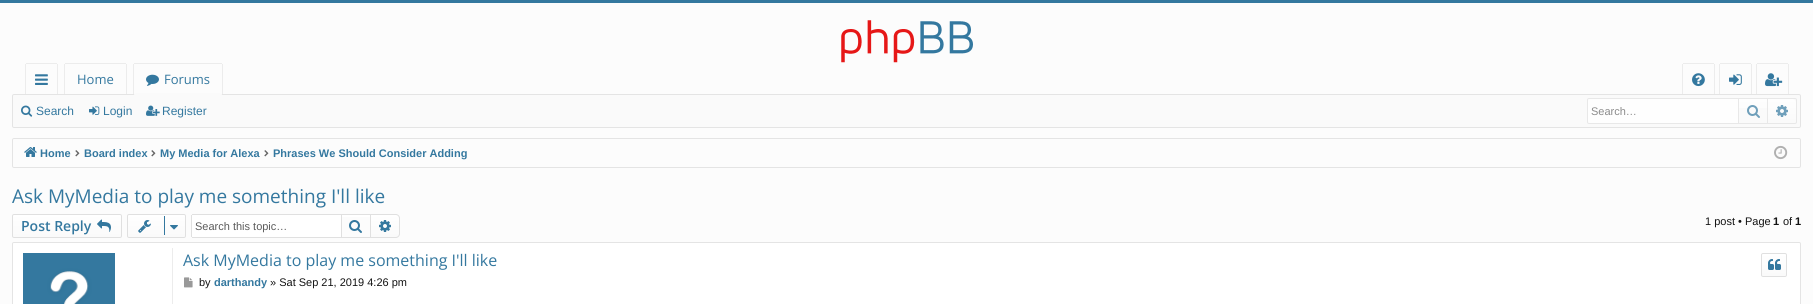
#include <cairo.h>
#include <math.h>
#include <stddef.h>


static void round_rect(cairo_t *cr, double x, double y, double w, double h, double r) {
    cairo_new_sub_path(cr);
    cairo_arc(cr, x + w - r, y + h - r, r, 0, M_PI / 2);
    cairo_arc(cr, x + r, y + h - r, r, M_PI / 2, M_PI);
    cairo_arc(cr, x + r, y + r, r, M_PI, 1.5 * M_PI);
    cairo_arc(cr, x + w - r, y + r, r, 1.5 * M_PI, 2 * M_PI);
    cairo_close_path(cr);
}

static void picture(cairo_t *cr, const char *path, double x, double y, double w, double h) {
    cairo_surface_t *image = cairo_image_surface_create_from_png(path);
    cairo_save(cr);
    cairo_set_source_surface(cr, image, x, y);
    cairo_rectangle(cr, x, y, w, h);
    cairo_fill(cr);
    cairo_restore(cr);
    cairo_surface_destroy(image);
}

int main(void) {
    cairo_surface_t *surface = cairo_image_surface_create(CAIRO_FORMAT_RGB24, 1813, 304);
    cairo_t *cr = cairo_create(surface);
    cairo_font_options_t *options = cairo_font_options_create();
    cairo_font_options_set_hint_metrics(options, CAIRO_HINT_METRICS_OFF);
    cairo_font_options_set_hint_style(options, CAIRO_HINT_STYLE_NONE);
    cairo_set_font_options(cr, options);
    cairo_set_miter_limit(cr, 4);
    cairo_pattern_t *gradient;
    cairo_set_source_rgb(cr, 0.988, 0.988, 0.988);
    cairo_paint(cr);
    cairo_set_source_rgb(cr, 0.204, 0.471, 0.624);
    cairo_rectangle(cr, 0, 0, 1813, 3);
    cairo_fill(cr);
    picture(cr, "img1.png", 841, 20, 132, 43);
    cairo_set_source_rgb(cr, 0.922, 0.922, 0.922);
    cairo_rectangle(cr, 26, 63, 31, 1);
    cairo_fill(cr);
    cairo_rectangle(cr, 57, 64, 1, 31);
    cairo_fill(cr);
    cairo_rectangle(cr, 25, 64, 1, 31);
    cairo_fill(cr);
    picture(cr, "img2.png", 35, 74, 13, 11);
    cairo_rectangle(cr, 65, 63, 61, 1);
    cairo_fill(cr);
    cairo_rectangle(cr, 126, 64, 1, 31);
    cairo_fill(cr);
    cairo_rectangle(cr, 64, 64, 1, 31);
    cairo_fill(cr);
    cairo_select_font_face(cr, "Open Sans", CAIRO_FONT_SLANT_NORMAL, CAIRO_FONT_WEIGHT_NORMAL);
    cairo_set_font_size(cr, 13);
    cairo_set_source_rgb(cr, 0.204, 0.471, 0.624);
    cairo_move_to(cr, 77, 84);
    cairo_show_text(cr, "Home");
    cairo_set_source_rgb(cr, 0.922, 0.922, 0.922);
    cairo_rectangle(cr, 134, 63, 88, 1);
    cairo_fill(cr);
    cairo_rectangle(cr, 222, 64, 1, 31);
    cairo_fill(cr);
    cairo_rectangle(cr, 133, 64, 1, 31);
    cairo_fill(cr);
    picture(cr, "img3.png", 146, 74, 13, 12);
    cairo_set_source_rgb(cr, 0.204, 0.471, 0.624);
    cairo_move_to(cr, 164, 84);
    cairo_show_text(cr, "Forums");
    cairo_set_source_rgb(cr, 0.922, 0.922, 0.922);
    cairo_rectangle(cr, 1714, 64, 1, 31);
    cairo_fill(cr);
    cairo_rectangle(cr, 1682, 64, 1, 31);
    cairo_fill(cr);
    cairo_rectangle(cr, 1751, 64, 1, 31);
    cairo_fill(cr);
    cairo_rectangle(cr, 1719, 64, 1, 31);
    cairo_fill(cr);
    cairo_rectangle(cr, 1788, 64, 1, 31);
    cairo_fill(cr);
    cairo_rectangle(cr, 1756, 64, 1, 31);
    cairo_fill(cr);
    cairo_set_source_rgb(cr, 0.98, 0.98, 0.98);
    round_rect(cr, 12.5, 94.5, 1788, 33, 1.5);
    cairo_fill_preserve(cr);
    cairo_set_source_rgb(cr, 0.894, 0.894, 0.894);
    cairo_set_line_width(cr, 1);
    cairo_stroke(cr);
    cairo_set_source_rgb(cr, 0.98, 0.98, 0.98);
    cairo_new_path(cr);
    cairo_move_to(cr, 136, 93);
    cairo_line_to(cr, 220, 93);
    cairo_curve_to(cr, 221, 93, 222, 94, 222, 95);
    cairo_line_to(cr, 222, 97);
    cairo_line_to(cr, 134, 97);
    cairo_line_to(cr, 134, 95);
    cairo_curve_to(cr, 134, 94, 135, 93, 136, 93);
    cairo_close_path(cr);
    cairo_fill(cr);
    cairo_set_source_rgb(cr, 0.922, 0.922, 0.922);
    cairo_rectangle(cr, 1683, 63, 31, 1);
    cairo_fill(cr);
    picture(cr, "img4.png", 1692, 73, 13, 14);
    cairo_rectangle(cr, 1720, 63, 31, 1);
    cairo_fill(cr);
    picture(cr, "img5.png", 1729, 74, 13, 11);
    cairo_rectangle(cr, 1757, 63, 31, 1);
    cairo_fill(cr);
    picture(cr, "img6.png", 1765, 73, 18, 14);
    picture(cr, "img7.png", 21, 105, 12, 12);
    cairo_select_font_face(cr, "Liberation Sans", CAIRO_FONT_SLANT_NORMAL, CAIRO_FONT_WEIGHT_NORMAL);
    cairo_set_font_size(cr, 12);
    cairo_set_source_rgb(cr, 0.204, 0.471, 0.624);
    cairo_move_to(cr, 36, 115);
    cairo_show_text(cr, "Search");
    picture(cr, "img8.png", 89, 106, 11, 9);
    cairo_move_to(cr, 103, 115);
    cairo_show_text(cr, "Login");
    picture(cr, "img9.png", 146, 105, 14, 11);
    cairo_move_to(cr, 162, 115);
    cairo_show_text(cr, "Register");
    round_rect(cr, 1587.5, 98.5, 209, 25, 1.5);
    cairo_set_source_rgb(cr, 0.91, 0.91, 0.91);
    cairo_stroke(cr);
    cairo_set_source_rgb(cr, 0.996, 0.996, 0.996);
    cairo_new_path(cr);
    cairo_move_to(cr, 1590, 99);
    cairo_line_to(cr, 1738, 99);
    cairo_line_to(cr, 1738, 123);
    cairo_line_to(cr, 1590, 123);
    cairo_curve_to(cr, 1589, 123, 1588, 122, 1588, 121);
    cairo_line_to(cr, 1588, 101);
    cairo_curve_to(cr, 1588, 100, 1589, 99, 1590, 99);
    cairo_close_path(cr);
    cairo_fill(cr);
    cairo_set_font_size(cr, 11);
    cairo_set_source_rgb(cr, 0.545, 0.545, 0.545);
    cairo_move_to(cr, 1591, 115);
    cairo_show_text(cr, "Search…");
    gradient = cairo_pattern_create_linear(1753, 99, 1753, 123);
    cairo_pattern_add_color_stop_rgba(gradient, 0, 0.996, 0.996, 0.996, 1);
    cairo_pattern_add_color_stop_rgba(gradient, 1, 0.98, 0.98, 0.98, 1);
    cairo_set_source(cr, gradient);
    cairo_pattern_destroy(gradient);
    cairo_rectangle(cr, 1739, 99, 28, 9);
    cairo_fill(cr);
    cairo_set_source_rgb(cr, 0.91, 0.91, 0.91);
    cairo_rectangle(cr, 1767, 99, 1, 24);
    cairo_fill(cr);
    cairo_rectangle(cr, 1738, 99, 1, 24);
    cairo_fill(cr);
    picture(cr, "img10.png", 1747, 105, 13, 13);
    gradient = cairo_pattern_create_linear(1782, 99, 1782, 123);
    cairo_pattern_add_color_stop_rgba(gradient, 0, 0.996, 0.996, 0.996, 1);
    cairo_pattern_add_color_stop_rgba(gradient, 1, 0.98, 0.98, 0.98, 1);
    cairo_set_source(cr, gradient);
    cairo_pattern_destroy(gradient);
    cairo_new_path(cr);
    cairo_move_to(cr, 1768, 99);
    cairo_line_to(cr, 1792, 99);
    cairo_curve_to(cr, 1794, 99, 1796, 101, 1796, 103);
    cairo_line_to(cr, 1796, 119);
    cairo_curve_to(cr, 1796, 121, 1794, 123, 1792, 123);
    cairo_line_to(cr, 1768, 123);
    cairo_close_path(cr);
    cairo_fill(cr);
    picture(cr, "img11.png", 1776, 105, 12, 12);
    round_rect(cr, 12.5, 138.5, 1788, 29, 1.5);
    cairo_set_source_rgb(cr, 0.894, 0.894, 0.894);
    cairo_stroke(cr);
    picture(cr, "img12.png", 24, 147, 13, 10);
    cairo_select_font_face(cr, "Liberation Sans", CAIRO_FONT_SLANT_NORMAL, CAIRO_FONT_WEIGHT_BOLD);
    cairo_set_source_rgb(cr, 0.204, 0.471, 0.624);
    cairo_move_to(cr, 40, 157);
    cairo_show_text(cr, "Home");
    picture(cr, "img13.png", 75, 150, 5, 7);
    cairo_move_to(cr, 84, 157);
    cairo_show_text(cr, "Board index");
    picture(cr, "img13.png", 151, 150, 5, 7);
    cairo_move_to(cr, 160, 157);
    cairo_show_text(cr, "My Media for Alexa");
    picture(cr, "img13.png", 264, 150, 5, 7);
    cairo_move_to(cr, 273, 157);
    cairo_show_text(cr, "Phrases We Should Consider Adding");
    picture(cr, "img14.png", 1774, 145, 14, 15);
    cairo_select_font_face(cr, "Open Sans", CAIRO_FONT_SLANT_NORMAL, CAIRO_FONT_WEIGHT_NORMAL);
    cairo_set_font_size(cr, 19);
    cairo_move_to(cr, 12, 203);
    cairo_show_text(cr, "Ask MyMedia to play me something I'll like");
    cairo_save(cr);
    round_rect(cr, 12, 214, 110, 24, 2);
    cairo_clip(cr);
    gradient = cairo_pattern_create_linear(67, 215, 67, 237);
    cairo_pattern_add_color_stop_rgba(gradient, 0, 1, 1, 1, 1);
    cairo_pattern_add_color_stop_rgba(gradient, 1, 0.98, 0.98, 0.98, 1);
    cairo_set_source(cr, gradient);
    cairo_pattern_destroy(gradient);
    cairo_rectangle(cr, 12, 215, 110, 22);
    cairo_fill(cr);
    cairo_restore(cr);
    round_rect(cr, 12.5, 214.5, 109, 23, 1.5);
    cairo_set_source_rgb(cr, 0.878, 0.878, 0.878);
    cairo_stroke(cr);
    cairo_select_font_face(cr, "Open Sans SemiBold", CAIRO_FONT_SLANT_NORMAL, CAIRO_FONT_WEIGHT_NORMAL);
    cairo_set_font_size(cr, 14);
    cairo_set_source_rgb(cr, 0.204, 0.471, 0.624);
    cairo_move_to(cr, 21, 231);
    cairo_show_text(cr, "Post Reply");
    picture(cr, "img15.png", 97, 219, 14, 13);
    cairo_save(cr);
    round_rect(cr, 127, 214, 59, 24, 2);
    cairo_clip(cr);
    gradient = cairo_pattern_create_linear(157, 215, 157, 237);
    cairo_pattern_add_color_stop_rgba(gradient, 0, 1, 1, 1, 1);
    cairo_pattern_add_color_stop_rgba(gradient, 1, 0.98, 0.98, 0.98, 1);
    cairo_set_source(cr, gradient);
    cairo_pattern_destroy(gradient);
    cairo_rectangle(cr, 127, 215, 59, 22);
    cairo_fill(cr);
    cairo_restore(cr);
    round_rect(cr, 127.5, 214.5, 58, 23, 1.5);
    cairo_set_source_rgb(cr, 0.878, 0.878, 0.878);
    cairo_stroke(cr);
    picture(cr, "img16.png", 138, 220, 13, 13);
    cairo_set_source_rgb(cr, 0.204, 0.471, 0.624);
    cairo_rectangle(cr, 164, 216, 1, 19);
    cairo_fill(cr);
    picture(cr, "img17.png", 170, 225, 8, 5);
    cairo_set_source_rgb(cr, 1, 1, 1);
    cairo_new_path(cr);
    cairo_move_to(cr, 193, 215);
    cairo_line_to(cr, 341, 215);
    cairo_line_to(cr, 341, 237);
    cairo_line_to(cr, 193, 237);
    cairo_curve_to(cr, 192.5, 237, 192, 236.5, 192, 236);
    cairo_line_to(cr, 192, 216);
    cairo_curve_to(cr, 192, 215.5, 192.5, 215, 193, 215);
    cairo_close_path(cr);
    cairo_fill(cr);
    cairo_set_source_rgb(cr, 0.878, 0.878, 0.878);
    cairo_rectangle(cr, 192, 214, 149, 1);
    cairo_fill(cr);
    cairo_rectangle(cr, 192, 237, 149, 1);
    cairo_fill(cr);
    cairo_rectangle(cr, 191, 215, 1, 22);
    cairo_fill(cr);
    cairo_select_font_face(cr, "Liberation Sans", CAIRO_FONT_SLANT_NORMAL, CAIRO_FONT_WEIGHT_NORMAL);
    cairo_set_font_size(cr, 11);
    cairo_set_source_rgb(cr, 0.357, 0.357, 0.357);
    cairo_move_to(cr, 195, 230);
    cairo_show_text(cr, "Search this topic…");
    gradient = cairo_pattern_create_linear(356, 215, 356, 237);
    cairo_pattern_add_color_stop_rgba(gradient, 0, 1, 1, 1, 1);
    cairo_pattern_add_color_stop_rgba(gradient, 1, 0.98, 0.98, 0.98, 1);
    cairo_set_source(cr, gradient);
    cairo_pattern_destroy(gradient);
    cairo_rectangle(cr, 342, 215, 28, 2);
    cairo_fill(cr);
    cairo_rectangle(cr, 341.5, 214.5, 29, 23);
    cairo_set_source_rgb(cr, 0.878, 0.878, 0.878);
    cairo_stroke(cr);
    picture(cr, "img18.png", 349, 220, 13, 13);
    gradient = cairo_pattern_create_linear(385, 215, 385, 237);
    cairo_pattern_add_color_stop_rgba(gradient, 0, 1, 1, 1, 1);
    cairo_pattern_add_color_stop_rgba(gradient, 1, 0.98, 0.98, 0.98, 1);
    cairo_set_source(cr, gradient);
    cairo_pattern_destroy(gradient);
    cairo_new_path(cr);
    cairo_move_to(cr, 371, 215);
    cairo_line_to(cr, 396, 215);
    cairo_curve_to(cr, 397.5, 215, 399, 216.5, 399, 218);
    cairo_line_to(cr, 399, 234);
    cairo_curve_to(cr, 399, 235.5, 397.5, 237, 396, 237);
    cairo_line_to(cr, 371, 237);
    cairo_close_path(cr);
    cairo_fill(cr);
    cairo_set_source_rgb(cr, 0.878, 0.878, 0.878);
    cairo_set_fill_rule(cr, CAIRO_FILL_RULE_EVEN_ODD);
    cairo_new_path(cr);
    cairo_move_to(cr, 371, 214);
    cairo_line_to(cr, 396, 214);
    cairo_curve_to(cr, 398, 214, 400, 216, 400, 218);
    cairo_line_to(cr, 400, 234);
    cairo_curve_to(cr, 400, 236, 398, 238, 396, 238);
    cairo_line_to(cr, 371, 238);
    cairo_close_path(cr);
    cairo_move_to(cr, 371, 215);
    cairo_line_to(cr, 396, 215);
    cairo_curve_to(cr, 397.5, 215, 399, 216.5, 399, 218);
    cairo_line_to(cr, 399, 234);
    cairo_curve_to(cr, 399, 235.5, 397.5, 237, 396, 237);
    cairo_line_to(cr, 371, 237);
    cairo_close_path(cr);
    cairo_fill(cr);
    picture(cr, "img19.png", 379, 220, 12, 12);
    cairo_set_source_rgb(cr, 0.078, 0.078, 0.078);
    cairo_move_to(cr, 1705, 225);
    cairo_show_text(cr, "1 post • Page");
    cairo_select_font_face(cr, "Liberation Sans", CAIRO_FONT_SLANT_NORMAL, CAIRO_FONT_WEIGHT_BOLD);
    cairo_move_to(cr, 1773, 225);
    cairo_show_text(cr, "1");
    cairo_select_font_face(cr, "Liberation Sans", CAIRO_FONT_SLANT_NORMAL, CAIRO_FONT_WEIGHT_NORMAL);
    cairo_move_to(cr, 1783, 225);
    cairo_show_text(cr, "of");
    cairo_select_font_face(cr, "Liberation Sans", CAIRO_FONT_SLANT_NORMAL, CAIRO_FONT_WEIGHT_BOLD);
    cairo_move_to(cr, 1795, 225);
    cairo_show_text(cr, "1");
    cairo_set_source_rgb(cr, 1, 1, 1);
    cairo_set_fill_rule(cr, CAIRO_FILL_RULE_WINDING);
    cairo_new_path(cr);
    cairo_move_to(cr, 14, 243);
    cairo_line_to(cr, 1799, 243);
    cairo_curve_to(cr, 1800, 243, 1800, 243, 1800, 244);
    cairo_line_to(cr, 1800, 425);
    cairo_curve_to(cr, 1800, 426, 1799, 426, 1797, 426);
    cairo_line_to(cr, 16, 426);
    cairo_curve_to(cr, 14, 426, 13, 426, 13, 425);
    cairo_line_to(cr, 13, 244);
    cairo_curve_to(cr, 13, 243, 13, 243, 14, 243);
    cairo_close_path(cr);
    cairo_fill(cr);
    cairo_new_path(cr);
    cairo_move_to(cr, 14, 242.5);
    cairo_line_to(cr, 1799, 242.5);
    cairo_curve_to(cr, 1800, 242.5, 1800.5, 243, 1800.5, 244);
    cairo_line_to(cr, 1800.5, 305);
    cairo_curve_to(cr, 1800.5, 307, 1799, 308.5, 1797, 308.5);
    cairo_line_to(cr, 16, 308.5);
    cairo_curve_to(cr, 14, 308.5, 12.5, 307, 12.5, 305);
    cairo_line_to(cr, 12.5, 244);
    cairo_curve_to(cr, 12.5, 243, 13, 242.5, 14, 242.5);
    cairo_close_path(cr);
    cairo_set_source_rgb(cr, 0.894, 0.894, 0.894);
    cairo_stroke(cr);
    cairo_set_source_rgb(cr, 0.922, 0.922, 0.922);
    cairo_rectangle(cr, 172, 248, 1, 56);
    cairo_fill(cr);
    picture(cr, "img20.png", 23, 253, 92, 51);
    cairo_select_font_face(cr, "Open Sans", CAIRO_FONT_SLANT_NORMAL, CAIRO_FONT_WEIGHT_NORMAL);
    cairo_set_font_size(cr, 16);
    cairo_set_source_rgb(cr, 0.204, 0.471, 0.624);
    cairo_move_to(cr, 183, 266);
    cairo_show_text(cr, "Ask MyMedia to play me something I'll like");
    cairo_save(cr);
    round_rect(cr, 1761, 253, 26, 24, 2);
    cairo_clip(cr);
    gradient = cairo_pattern_create_linear(1774, 254, 1774, 276);
    cairo_pattern_add_color_stop_rgba(gradient, 0, 1, 1, 1, 1);
    cairo_pattern_add_color_stop_rgba(gradient, 1, 0.98, 0.98, 0.98, 1);
    cairo_set_source(cr, gradient);
    cairo_pattern_destroy(gradient);
    cairo_rectangle(cr, 1761, 254, 26, 22);
    cairo_fill(cr);
    cairo_restore(cr);
    round_rect(cr, 1761.5, 253.5, 25, 23, 1.5);
    cairo_set_source_rgb(cr, 0.878, 0.878, 0.878);
    cairo_stroke(cr);
    picture(cr, "img21.png", 1768, 259, 13, 11);
    picture(cr, "img22.png", 184, 277, 9, 11);
    cairo_select_font_face(cr, "Liberation Sans", CAIRO_FONT_SLANT_NORMAL, CAIRO_FONT_WEIGHT_NORMAL);
    cairo_set_font_size(cr, 11);
    cairo_set_source_rgb(cr, 0.078, 0.078, 0.078);
    cairo_move_to(cr, 199, 286);
    cairo_show_text(cr, "by");
    cairo_select_font_face(cr, "Liberation Sans", CAIRO_FONT_SLANT_NORMAL, CAIRO_FONT_WEIGHT_BOLD);
    cairo_set_source_rgb(cr, 0.204, 0.471, 0.624);
    cairo_move_to(cr, 214, 286);
    cairo_show_text(cr, "darthandy");
    cairo_select_font_face(cr, "Liberation Sans", CAIRO_FONT_SLANT_NORMAL, CAIRO_FONT_WEIGHT_NORMAL);
    cairo_set_source_rgb(cr, 0.078, 0.078, 0.078);
    cairo_move_to(cr, 270, 286);
    cairo_show_text(cr, "» Sat Sep 21, 2019 4:26 pm");
    cairo_surface_write_to_png(surface, "page.png");
    cairo_font_options_destroy(options);
    cairo_destroy(cr);
    cairo_surface_destroy(surface);
    return 0;
}
